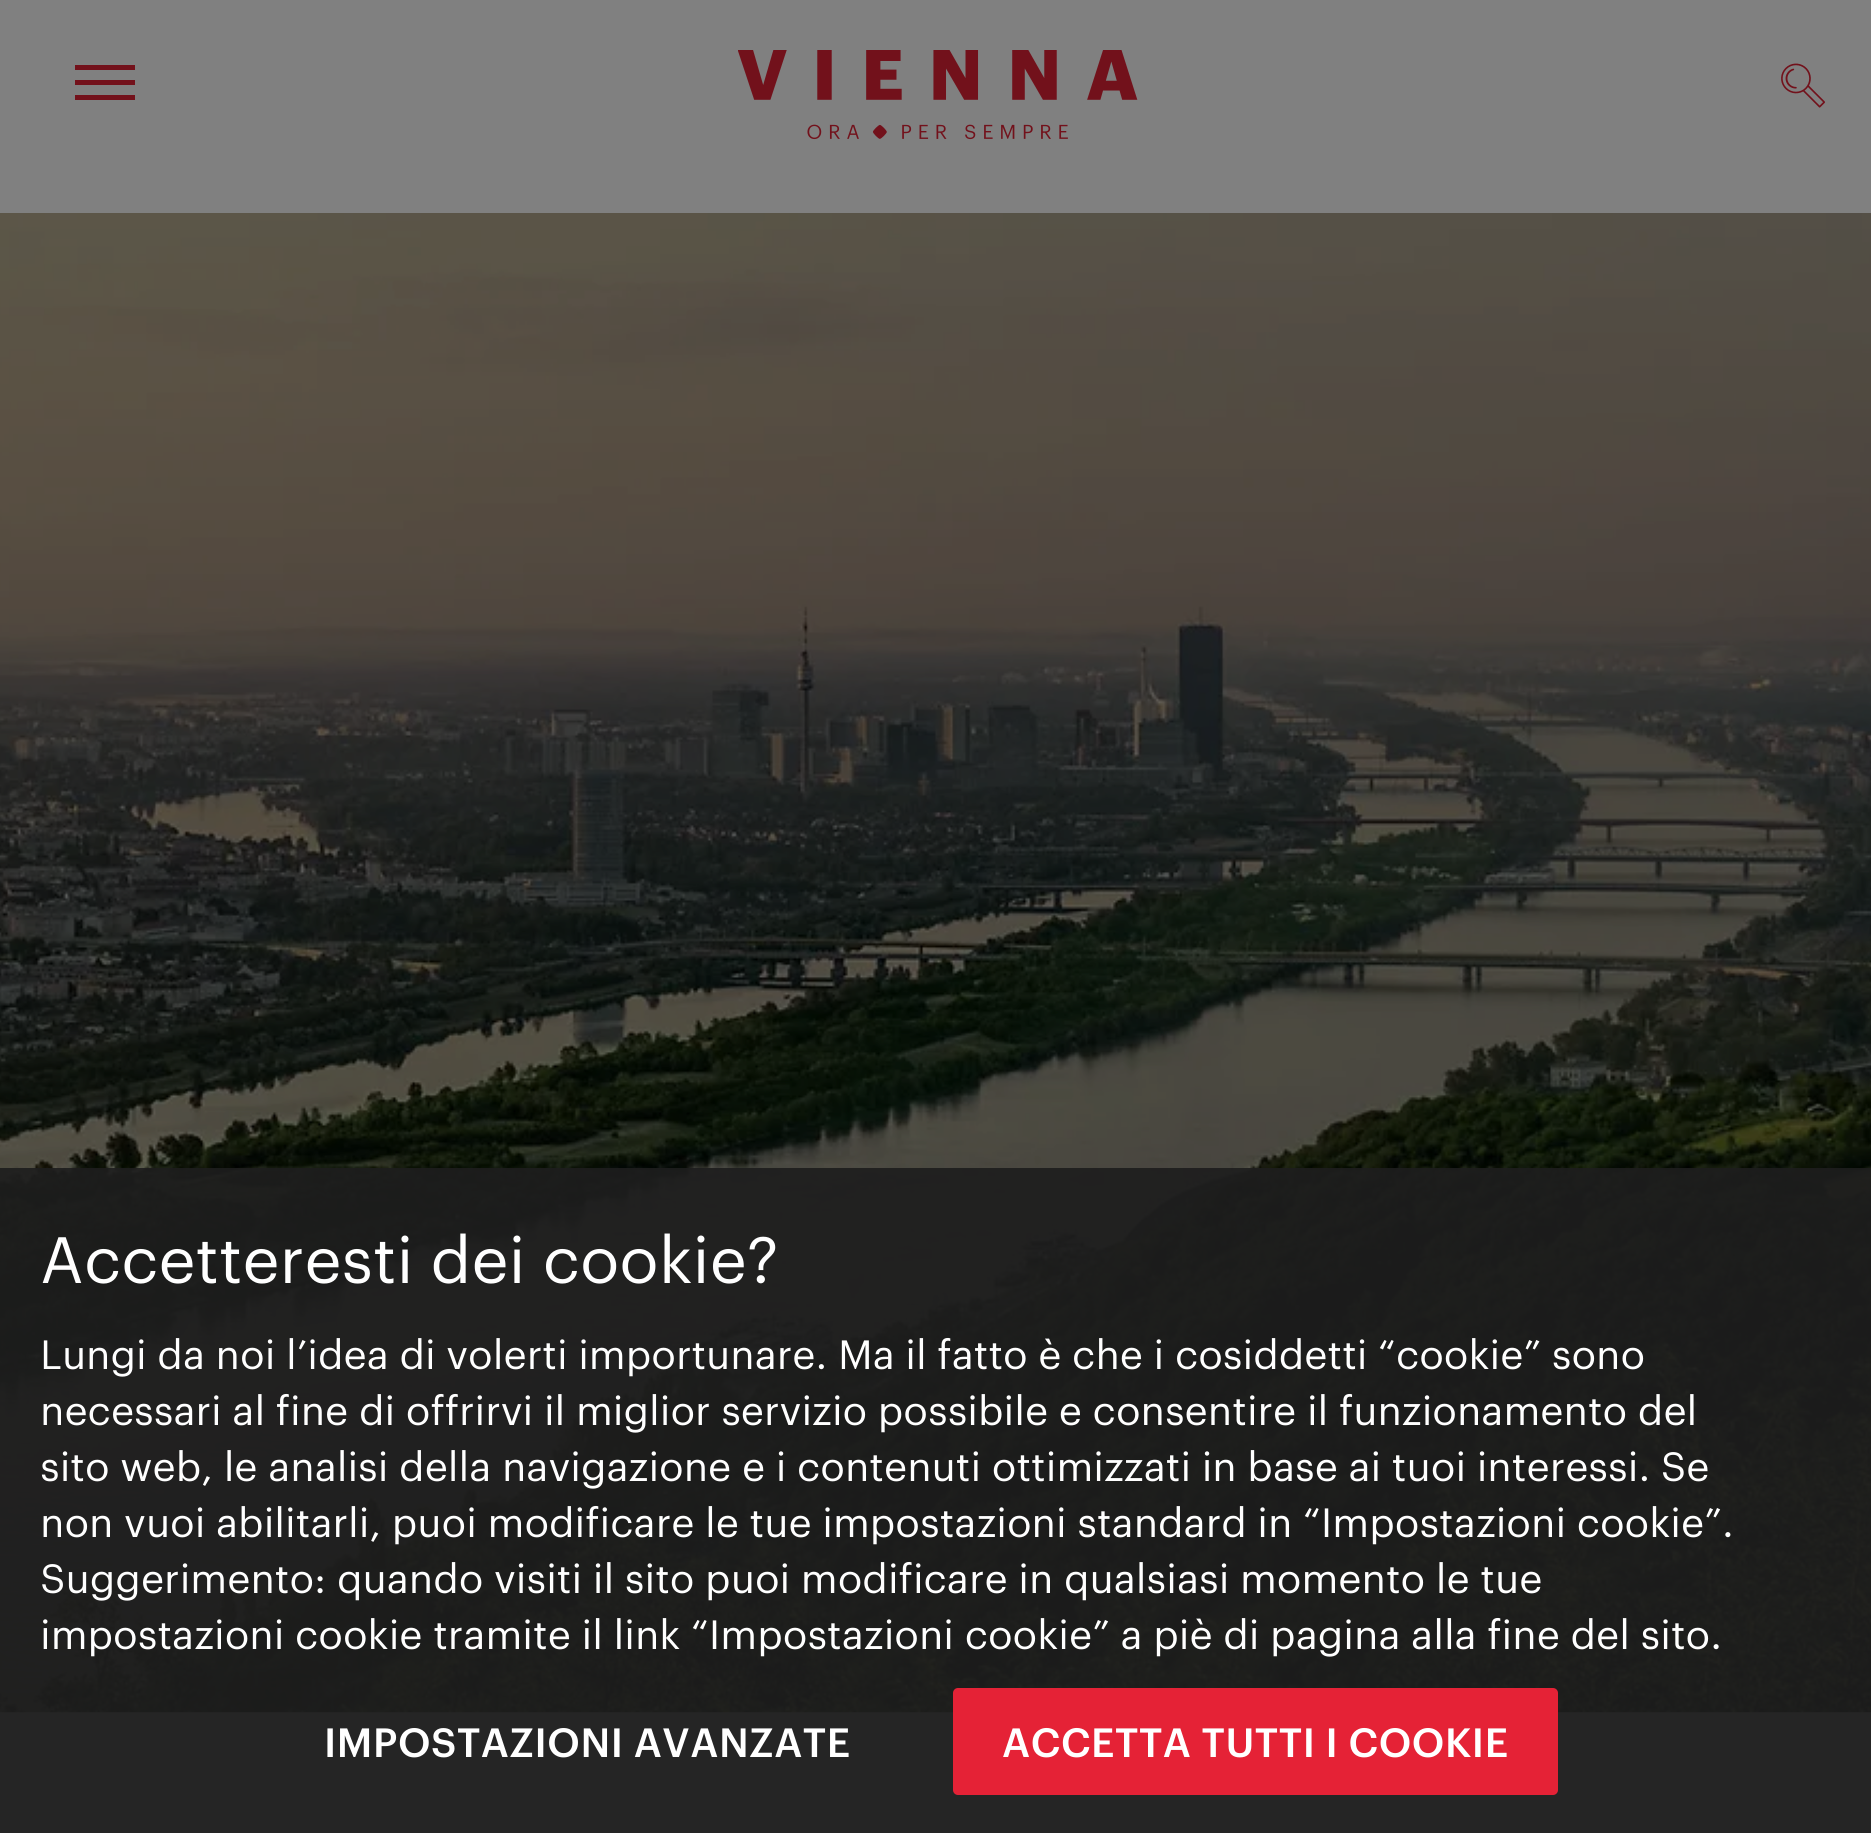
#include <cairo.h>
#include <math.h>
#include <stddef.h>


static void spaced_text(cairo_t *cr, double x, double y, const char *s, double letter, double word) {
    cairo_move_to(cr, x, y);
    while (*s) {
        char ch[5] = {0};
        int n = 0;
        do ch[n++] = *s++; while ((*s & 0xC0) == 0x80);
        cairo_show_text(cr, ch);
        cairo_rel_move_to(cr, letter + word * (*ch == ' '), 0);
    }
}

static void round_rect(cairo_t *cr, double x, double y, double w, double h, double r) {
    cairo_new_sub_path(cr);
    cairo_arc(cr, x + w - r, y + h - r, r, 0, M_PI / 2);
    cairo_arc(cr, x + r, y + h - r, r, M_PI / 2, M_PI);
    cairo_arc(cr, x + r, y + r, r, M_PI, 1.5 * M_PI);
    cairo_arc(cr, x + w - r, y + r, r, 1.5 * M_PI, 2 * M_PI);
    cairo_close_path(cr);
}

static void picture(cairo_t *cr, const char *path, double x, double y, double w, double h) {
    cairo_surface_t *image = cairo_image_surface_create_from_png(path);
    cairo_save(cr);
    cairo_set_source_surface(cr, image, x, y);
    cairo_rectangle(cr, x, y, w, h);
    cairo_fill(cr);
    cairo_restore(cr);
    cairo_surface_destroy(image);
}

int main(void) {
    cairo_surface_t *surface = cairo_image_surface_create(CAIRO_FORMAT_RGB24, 1871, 1833);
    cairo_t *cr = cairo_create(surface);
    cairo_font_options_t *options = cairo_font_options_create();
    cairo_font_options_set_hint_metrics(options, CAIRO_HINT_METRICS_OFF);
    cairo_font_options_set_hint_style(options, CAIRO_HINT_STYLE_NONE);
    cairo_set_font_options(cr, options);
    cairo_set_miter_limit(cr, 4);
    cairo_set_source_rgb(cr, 0.502, 0.502, 0.502);
    cairo_paint(cr);
    cairo_set_source_rgb(cr, 0.451, 0.067, 0.106);
    cairo_rectangle(cr, 75, 80, 60, 5);
    cairo_fill(cr);
    cairo_rectangle(cr, 75, 65, 60, 5);
    cairo_fill(cr);
    cairo_rectangle(cr, 75, 95, 60, 5);
    cairo_fill(cr);
    picture(cr, "img1.png", 738, 50, 400, 90);
    picture(cr, "img2.png", 1781, 63, 44, 45);
    picture(cr, "img3.png", 0, 213, 1871, 1500);
    cairo_set_source_rgba(cr, 0.118, 0.118, 0.118, 0.92);
    cairo_rectangle(cr, 0, 1168, 1871, 665);
    cairo_fill(cr);
    cairo_select_font_face(cr, "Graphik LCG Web", CAIRO_FONT_SLANT_NORMAL, CAIRO_FONT_WEIGHT_NORMAL);
    cairo_set_font_size(cr, 64);
    cairo_set_source_rgb(cr, 1, 1, 1);
    cairo_move_to(cr, 40, 1283);
    cairo_show_text(cr, "Accetteresti dei cookie?");
    cairo_set_font_size(cr, 40);
    cairo_move_to(cr, 40, 1369);
    cairo_show_text(cr, "Lungi da noi l’idea di volerti importunare. Ma il fatto è che i cosiddetti “cookie” sono");
    cairo_move_to(cr, 40, 1425);
    cairo_show_text(cr, "necessari al fine di offrirvi il miglior servizio possibile e consentire il funzionamento del");
    cairo_move_to(cr, 40, 1481);
    cairo_show_text(cr, "sito web, le analisi della navigazione e i contenuti ottimizzati in base ai tuoi interessi. Se");
    cairo_move_to(cr, 40, 1537);
    cairo_show_text(cr, "non vuoi abilitarli, puoi modificare le tue impostazioni standard in “Impostazioni cookie”.");
    cairo_move_to(cr, 40, 1593);
    cairo_show_text(cr, "Suggerimento: quando visiti il sito puoi modificare in qualsiasi momento le tue");
    cairo_move_to(cr, 40, 1649);
    cairo_show_text(cr, "impostazioni cookie tramite il link “Impostazioni cookie” a piè di pagina alla fine del sito.");
    cairo_select_font_face(cr, "Graphik LCG Web Medium", CAIRO_FONT_SLANT_NORMAL, CAIRO_FONT_WEIGHT_NORMAL);
    spaced_text(cr, 324, 1757, "IMPOSTAZIONI AVANZATE", 0.4, 0);
    cairo_set_source_rgb(cr, 0.898, 0.133, 0.212);
    round_rect(cr, 953, 1688, 605, 107, 5);
    cairo_fill(cr);
    cairo_set_source_rgb(cr, 1, 1, 1);
    spaced_text(cr, 1002, 1757, "ACCETTA TUTTI I COOKIE", 0.4, 0);
    cairo_surface_write_to_png(surface, "page.png");
    cairo_font_options_destroy(options);
    cairo_destroy(cr);
    cairo_surface_destroy(surface);
    return 0;
}
